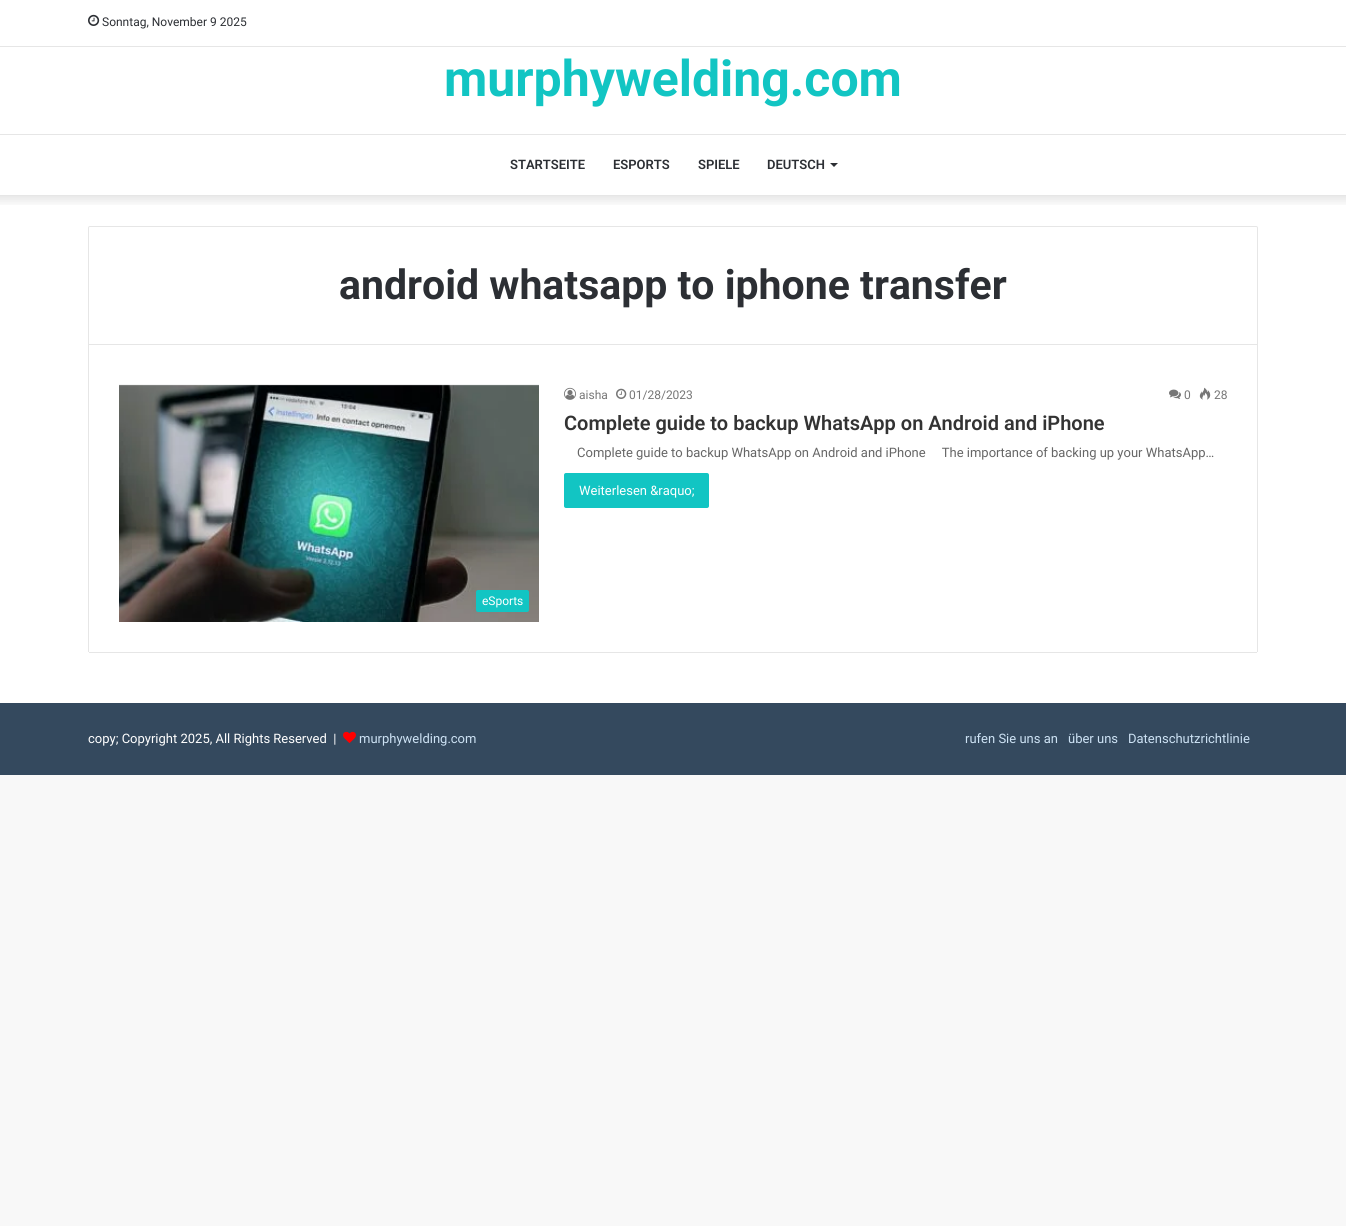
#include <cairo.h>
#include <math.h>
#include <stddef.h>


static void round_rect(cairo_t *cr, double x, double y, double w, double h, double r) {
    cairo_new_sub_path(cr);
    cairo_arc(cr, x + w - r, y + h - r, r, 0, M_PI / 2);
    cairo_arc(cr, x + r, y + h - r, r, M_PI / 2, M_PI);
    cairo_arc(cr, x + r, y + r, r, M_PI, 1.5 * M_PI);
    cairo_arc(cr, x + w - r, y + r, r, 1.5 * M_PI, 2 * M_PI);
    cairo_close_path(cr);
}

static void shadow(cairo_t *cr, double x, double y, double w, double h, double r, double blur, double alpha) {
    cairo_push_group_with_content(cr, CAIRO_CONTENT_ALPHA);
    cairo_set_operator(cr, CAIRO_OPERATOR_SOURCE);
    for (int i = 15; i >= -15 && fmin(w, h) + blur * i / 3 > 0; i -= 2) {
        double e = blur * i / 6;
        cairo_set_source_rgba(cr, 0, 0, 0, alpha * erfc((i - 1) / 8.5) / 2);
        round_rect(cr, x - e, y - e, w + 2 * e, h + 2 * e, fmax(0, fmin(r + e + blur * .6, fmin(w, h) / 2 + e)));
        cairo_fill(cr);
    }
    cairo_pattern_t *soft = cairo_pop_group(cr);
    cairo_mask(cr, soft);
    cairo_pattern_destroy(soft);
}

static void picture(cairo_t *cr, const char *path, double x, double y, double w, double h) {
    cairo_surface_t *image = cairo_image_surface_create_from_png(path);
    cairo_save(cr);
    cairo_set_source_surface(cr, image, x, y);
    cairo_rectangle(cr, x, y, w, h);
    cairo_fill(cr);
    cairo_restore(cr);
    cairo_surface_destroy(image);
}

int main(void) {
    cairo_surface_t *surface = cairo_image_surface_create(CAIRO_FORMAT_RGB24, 1346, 1226);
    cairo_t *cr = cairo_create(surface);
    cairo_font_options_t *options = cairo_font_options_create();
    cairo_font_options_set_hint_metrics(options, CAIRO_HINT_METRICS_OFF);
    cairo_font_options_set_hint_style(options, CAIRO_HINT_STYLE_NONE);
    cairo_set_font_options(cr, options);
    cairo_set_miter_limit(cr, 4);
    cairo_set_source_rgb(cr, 0.969, 0.969, 0.969);
    cairo_paint(cr);
    cairo_set_source_rgb(cr, 1, 1, 1);
    cairo_rectangle(cr, 0, 0, 1346, 703);
    cairo_fill(cr);
    cairo_save(cr);
    cairo_rectangle(cr, 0, 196, 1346, 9);
    cairo_clip(cr);
    cairo_set_source_rgb(cr, 0, 0, 0);
    shadow(cr, -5, -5, 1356, 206, 0, 5, 0.1);
    cairo_restore(cr);
    cairo_set_source_rgb(cr, 0.902, 0.902, 0.902);
    cairo_rectangle(cr, 0, 46, 1346, 1);
    cairo_fill(cr);
    picture(cr, "img1.png", 88, 14, 12, 12);
    cairo_select_font_face(cr, "Roboto", CAIRO_FONT_SLANT_NORMAL, CAIRO_FONT_WEIGHT_NORMAL);
    cairo_set_font_size(cr, 12);
    cairo_set_source_rgb(cr, 0.173, 0.184, 0.204);
    cairo_move_to(cr, 102, 26);
    cairo_show_text(cr, "Sonntag, November 9 2025");
    cairo_select_font_face(cr, "Roboto", CAIRO_FONT_SLANT_NORMAL, CAIRO_FONT_WEIGHT_BOLD);
    cairo_set_font_size(cr, 50);
    cairo_set_source_rgb(cr, 0.071, 0.773, 0.765);
    cairo_move_to(cr, 444, 96);
    cairo_show_text(cr, "murphywelding.com");
    cairo_set_source_rgb(cr, 0.902, 0.902, 0.902);
    cairo_rectangle(cr, 0, 134, 1346, 1);
    cairo_fill(cr);
    cairo_rectangle(cr, 0, 195, 1346, 1);
    cairo_fill(cr);
    cairo_select_font_face(cr, "Roboto SemiBold", CAIRO_FONT_SLANT_NORMAL, CAIRO_FONT_WEIGHT_NORMAL);
    cairo_set_font_size(cr, 13);
    cairo_set_source_rgb(cr, 0.173, 0.184, 0.204);
    cairo_move_to(cr, 510, 169);
    cairo_show_text(cr, "STARTSEITE");
    cairo_move_to(cr, 613, 169);
    cairo_show_text(cr, "ESPORTS");
    cairo_move_to(cr, 698, 169);
    cairo_show_text(cr, "SPIELE");
    cairo_move_to(cr, 767, 169);
    cairo_show_text(cr, "DEUTSCH");
    cairo_new_path(cr);
    cairo_move_to(cr, 830, 163);
    cairo_line_to(cr, 838, 163);
    cairo_line_to(cr, 834, 167);
    cairo_close_path(cr);
    cairo_fill(cr);
    cairo_new_path(cr);
    cairo_move_to(cr, 90, 226.5);
    cairo_line_to(cr, 1256, 226.5);
    cairo_curve_to(cr, 1257, 226.5, 1257.5, 227, 1257.5, 228);
    cairo_line_to(cr, 1257.5, 344.5);
    cairo_line_to(cr, 88.5, 344.5);
    cairo_line_to(cr, 88.5, 228);
    cairo_curve_to(cr, 88.5, 227, 89, 226.5, 90, 226.5);
    cairo_close_path(cr);
    cairo_set_source_rgb(cr, 0.902, 0.902, 0.902);
    cairo_set_line_width(cr, 1);
    cairo_stroke(cr);
    cairo_select_font_face(cr, "Roboto", CAIRO_FONT_SLANT_NORMAL, CAIRO_FONT_WEIGHT_BOLD);
    cairo_set_font_size(cr, 41);
    cairo_set_source_rgb(cr, 0.173, 0.184, 0.204);
    cairo_move_to(cr, 339, 299);
    cairo_show_text(cr, "android whatsapp to iphone transfer");
    cairo_set_source_rgb(cr, 0.902, 0.902, 0.902);
    cairo_rectangle(cr, 1257, 345, 1, 307);
    cairo_fill(cr);
    cairo_rectangle(cr, 89, 652, 1168, 1);
    cairo_fill(cr);
    cairo_rectangle(cr, 88, 345, 1, 307);
    cairo_fill(cr);
    picture(cr, "img2.png", 564, 387, 12, 13);
    cairo_select_font_face(cr, "Roboto", CAIRO_FONT_SLANT_NORMAL, CAIRO_FONT_WEIGHT_NORMAL);
    cairo_set_font_size(cr, 12);
    cairo_set_source_rgb(cr, 0.463, 0.463, 0.463);
    cairo_move_to(cr, 579, 399);
    cairo_show_text(cr, "aisha");
    picture(cr, "img3.png", 616, 388, 11, 11);
    cairo_move_to(cr, 629, 399);
    cairo_show_text(cr, "01/28/2023");
    picture(cr, "img4.png", 1169, 389, 12, 10);
    cairo_move_to(cr, 1184, 399);
    cairo_show_text(cr, "0");
    picture(cr, "img5.png", 1199, 387, 12, 13);
    cairo_move_to(cr, 1214, 399);
    cairo_show_text(cr, "28");
    cairo_select_font_face(cr, "Roboto SemiBold", CAIRO_FONT_SLANT_NORMAL, CAIRO_FONT_WEIGHT_NORMAL);
    cairo_set_font_size(cr, 20);
    cairo_set_source_rgb(cr, 0.2, 0.2, 0.2);
    cairo_move_to(cr, 564, 430);
    cairo_show_text(cr, "Complete guide to backup WhatsApp on Android and iPhone");
    cairo_select_font_face(cr, "Roboto", CAIRO_FONT_SLANT_NORMAL, CAIRO_FONT_WEIGHT_NORMAL);
    cairo_set_font_size(cr, 13);
    cairo_set_source_rgb(cr, 0.4, 0.4, 0.4);
    cairo_move_to(cr, 577, 457);
    cairo_show_text(cr, "Complete guide to backup WhatsApp on Android and iPhone     The importance of backing up your WhatsApp…");
    cairo_set_source_rgb(cr, 0.071, 0.773, 0.765);
    round_rect(cr, 564, 473, 145, 35, 2);
    cairo_fill(cr);
    cairo_set_source_rgb(cr, 1, 1, 1);
    cairo_move_to(cr, 579, 495);
    cairo_show_text(cr, "Weiterlesen &raquo;");
    picture(cr, "img6.png", 119, 384, 420, 238);
    cairo_set_source_rgb(cr, 0.071, 0.773, 0.765);
    round_rect(cr, 476, 590, 53, 22, 2);
    cairo_fill(cr);
    cairo_set_font_size(cr, 12);
    cairo_set_source_rgb(cr, 1, 1, 1);
    cairo_move_to(cr, 482, 605);
    cairo_show_text(cr, "eSports");
    cairo_set_source_rgb(cr, 0.204, 0.286, 0.369);
    cairo_rectangle(cr, 0, 703, 1346, 72);
    cairo_fill(cr);
    cairo_set_font_size(cr, 13);
    cairo_set_source_rgb(cr, 1, 1, 1);
    cairo_move_to(cr, 88, 743);
    cairo_show_text(cr, "copy; Copyright 2025, All Rights Reserved  |");
    picture(cr, "img7.png", 343, 731, 13, 12);
    cairo_set_source_rgb(cr, 0.804, 0.886, 0.957);
    cairo_move_to(cr, 359, 743);
    cairo_show_text(cr, "murphywelding.com");
    cairo_move_to(cr, 965, 743);
    cairo_show_text(cr, "rufen Sie uns an");
    cairo_move_to(cr, 1068, 743);
    cairo_show_text(cr, "über uns");
    cairo_move_to(cr, 1128, 743);
    cairo_show_text(cr, "Datenschutzrichtlinie");
    cairo_surface_write_to_png(surface, "page.png");
    cairo_font_options_destroy(options);
    cairo_destroy(cr);
    cairo_surface_destroy(surface);
    return 0;
}
